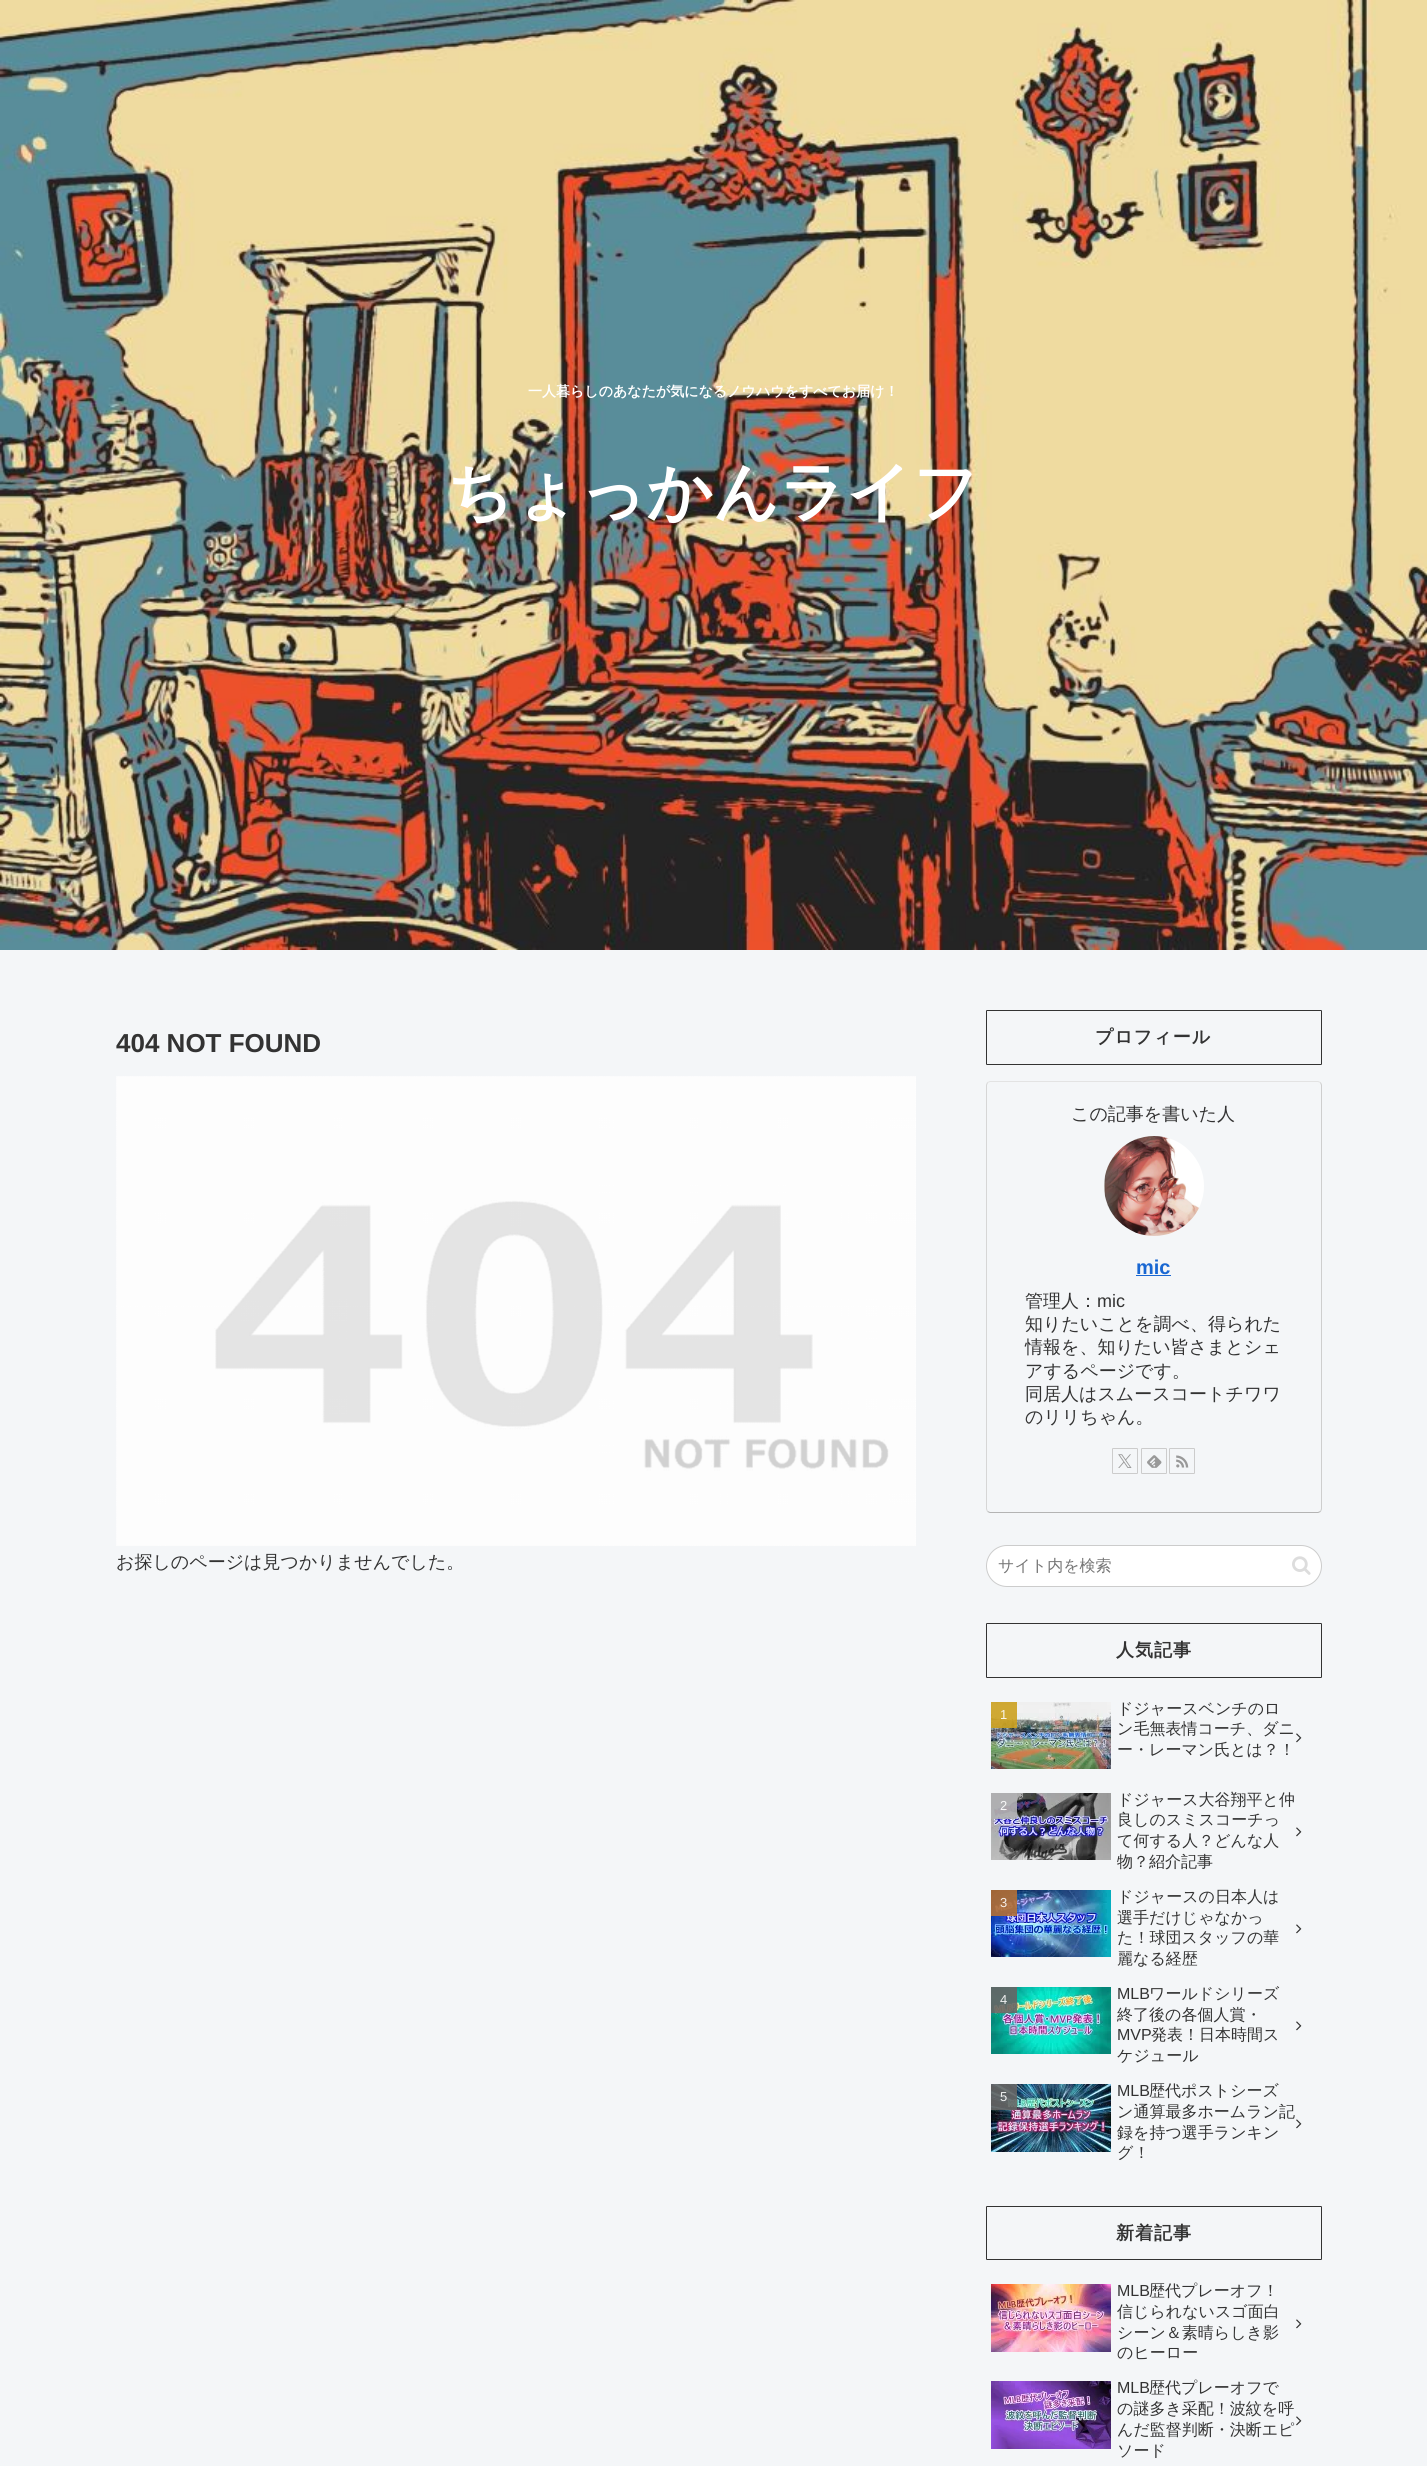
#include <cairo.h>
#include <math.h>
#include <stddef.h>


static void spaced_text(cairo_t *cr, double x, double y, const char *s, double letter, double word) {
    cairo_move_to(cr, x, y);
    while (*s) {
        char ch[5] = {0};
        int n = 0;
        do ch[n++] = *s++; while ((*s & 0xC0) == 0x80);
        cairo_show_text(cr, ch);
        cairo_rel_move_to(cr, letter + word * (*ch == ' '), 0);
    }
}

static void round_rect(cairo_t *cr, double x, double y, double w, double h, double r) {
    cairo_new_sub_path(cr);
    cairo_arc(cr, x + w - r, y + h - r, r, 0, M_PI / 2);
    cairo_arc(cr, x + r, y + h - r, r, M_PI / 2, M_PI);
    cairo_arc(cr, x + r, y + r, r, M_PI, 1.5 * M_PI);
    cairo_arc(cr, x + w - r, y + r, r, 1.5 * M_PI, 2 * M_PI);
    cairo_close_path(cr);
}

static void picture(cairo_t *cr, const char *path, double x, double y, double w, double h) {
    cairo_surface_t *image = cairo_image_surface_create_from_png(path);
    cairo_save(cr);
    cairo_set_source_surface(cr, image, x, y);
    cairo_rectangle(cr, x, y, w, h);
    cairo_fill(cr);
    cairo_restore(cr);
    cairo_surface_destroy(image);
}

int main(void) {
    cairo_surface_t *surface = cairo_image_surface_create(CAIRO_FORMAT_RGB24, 1427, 2466);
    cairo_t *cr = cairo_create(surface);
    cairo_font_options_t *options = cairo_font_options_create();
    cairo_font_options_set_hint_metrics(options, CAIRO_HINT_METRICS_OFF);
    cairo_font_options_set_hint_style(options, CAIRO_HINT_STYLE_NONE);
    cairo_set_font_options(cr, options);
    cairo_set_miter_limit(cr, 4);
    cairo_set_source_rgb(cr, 0.957, 0.961, 0.969);
    cairo_paint(cr);
    picture(cr, "img1.png", 0, 0, 1427, 950);
    cairo_select_font_face(cr, "WenQuanYi Zen Hei", CAIRO_FONT_SLANT_NORMAL, CAIRO_FONT_WEIGHT_BOLD);
    cairo_set_font_size(cr, 14);
    cairo_set_source_rgb(cr, 1, 1, 1);
    cairo_move_to(cr, 528, 396);
    cairo_show_text(cr, "一人暮らしのあなたが気になるノウハウをすべてお届け！");
    cairo_set_font_size(cr, 65);
    cairo_move_to(cr, 447, 514);
    cairo_show_text(cr, "ちょっかんライフ");
    cairo_select_font_face(cr, "Liberation Sans", CAIRO_FONT_SLANT_NORMAL, CAIRO_FONT_WEIGHT_BOLD);
    cairo_set_font_size(cr, 26);
    cairo_set_source_rgb(cr, 0.2, 0.2, 0.2);
    cairo_move_to(cr, 116, 1052);
    cairo_show_text(cr, "404 NOT FOUND");
    picture(cr, "img2.png", 116, 1076, 800, 470);
    cairo_select_font_face(cr, "WenQuanYi Zen Hei Medium", CAIRO_FONT_SLANT_NORMAL, CAIRO_FONT_WEIGHT_NORMAL);
    cairo_set_font_size(cr, 18);
    cairo_move_to(cr, 116, 1568);
    cairo_show_text(cr, "お探しのページは見つかりませんでした。");
    round_rect(cr, 986.5, 1010.5, 335, 54, 0.5);
    cairo_set_line_width(cr, 1);
    cairo_stroke(cr);
    cairo_select_font_face(cr, "WenQuanYi Zen Hei", CAIRO_FONT_SLANT_NORMAL, CAIRO_FONT_WEIGHT_BOLD);
    spaced_text(cr, 1095, 1043, "プロフィール", 1, 0);
    cairo_new_path(cr);
    cairo_move_to(cr, 987.5, 1082.5);
    cairo_line_to(cr, 990, 1081.5);
    cairo_line_to(cr, 1318, 1081.5);
    cairo_line_to(cr, 1320.5, 1082.5);
    cairo_set_source_rgb(cr, 0.89, 0.89, 0.89);
    cairo_stroke(cr);
    cairo_new_path(cr);
    cairo_move_to(cr, 1320.5, 1082.5);
    cairo_line_to(cr, 1321.5, 1085);
    cairo_line_to(cr, 1321.5, 1509);
    cairo_line_to(cr, 1320.5, 1511.5);
    cairo_set_source_rgb(cr, 0.808, 0.808, 0.808);
    cairo_stroke(cr);
    cairo_new_path(cr);
    cairo_move_to(cr, 1320.5, 1511.5);
    cairo_line_to(cr, 1318, 1512.5);
    cairo_line_to(cr, 990, 1512.5);
    cairo_line_to(cr, 987.5, 1511.5);
    cairo_set_source_rgb(cr, 0.706, 0.706, 0.706);
    cairo_stroke(cr);
    cairo_new_path(cr);
    cairo_move_to(cr, 987.5, 1511.5);
    cairo_line_to(cr, 986.5, 1509);
    cairo_line_to(cr, 986.5, 1085);
    cairo_line_to(cr, 987.5, 1082.5);
    cairo_set_source_rgb(cr, 0.839, 0.839, 0.839);
    cairo_stroke(cr);
    cairo_select_font_face(cr, "WenQuanYi Zen Hei Medium", CAIRO_FONT_SLANT_NORMAL, CAIRO_FONT_WEIGHT_NORMAL);
    cairo_set_source_rgb(cr, 0.2, 0.2, 0.2);
    cairo_move_to(cr, 1071, 1120);
    cairo_show_text(cr, "この記事を書いた人");
    picture(cr, "img3.png", 1104, 1136, 100, 100);
    cairo_select_font_face(cr, "Liberation Sans", CAIRO_FONT_SLANT_NORMAL, CAIRO_FONT_WEIGHT_BOLD);
    cairo_set_font_size(cr, 20);
    cairo_set_source_rgb(cr, 0.098, 0.404, 0.824);
    cairo_move_to(cr, 1136, 1274);
    cairo_show_text(cr, "mic");
    cairo_rectangle(cr, 1136, 1275, 35, 1);
    cairo_fill(cr);
    cairo_select_font_face(cr, "WenQuanYi Zen Hei Medium", CAIRO_FONT_SLANT_NORMAL, CAIRO_FONT_WEIGHT_NORMAL);
    cairo_set_font_size(cr, 18);
    cairo_set_source_rgb(cr, 0.2, 0.2, 0.2);
    cairo_move_to(cr, 1025, 1307);
    cairo_show_text(cr, "管理人：");
    cairo_select_font_face(cr, "Liberation Sans", CAIRO_FONT_SLANT_NORMAL, CAIRO_FONT_WEIGHT_NORMAL);
    cairo_move_to(cr, 1097, 1307);
    cairo_show_text(cr, "mic");
    cairo_select_font_face(cr, "WenQuanYi Zen Hei Medium", CAIRO_FONT_SLANT_NORMAL, CAIRO_FONT_WEIGHT_NORMAL);
    cairo_move_to(cr, 1025, 1330);
    cairo_show_text(cr, "知りたいことを調べ、得られた");
    cairo_move_to(cr, 1025, 1353);
    cairo_show_text(cr, "情報を、知りたい皆さまとシェ");
    cairo_move_to(cr, 1025, 1377);
    cairo_show_text(cr, "アするページです。");
    cairo_move_to(cr, 1025, 1400);
    cairo_show_text(cr, "同居人はスムースコートチワワ");
    cairo_move_to(cr, 1025, 1423);
    cairo_show_text(cr, "のリリちゃん。");
    round_rect(cr, 1112.5, 1448.5, 25, 25, 0.5);
    cairo_set_source_rgb(cr, 0.8, 0.8, 0.8);
    cairo_stroke(cr);
    picture(cr, "img4.png", 1118, 1454, 14, 14);
    round_rect(cr, 1141.5, 1448.5, 25, 25, 0.5);
    cairo_stroke(cr);
    picture(cr, "img5.png", 1147, 1455, 15, 13);
    round_rect(cr, 1169.5, 1448.5, 25, 25, 0.5);
    cairo_stroke(cr);
    picture(cr, "img6.png", 1176, 1455, 13, 13);
    cairo_set_source_rgb(cr, 1, 1, 1);
    round_rect(cr, 986.5, 1545.5, 335, 41, 20.5);
    cairo_fill_preserve(cr);
    cairo_set_source_rgb(cr, 0.8, 0.8, 0.8);
    cairo_stroke(cr);
    cairo_set_font_size(cr, 16);
    cairo_set_source_rgb(cr, 0.459, 0.459, 0.459);
    cairo_move_to(cr, 998, 1571);
    cairo_show_text(cr, "サイト内を検索");
    picture(cr, "img7.png", 1292, 1556, 19, 19);
    round_rect(cr, 986.5, 1623.5, 335, 54, 0.5);
    cairo_set_source_rgb(cr, 0.2, 0.2, 0.2);
    cairo_stroke(cr);
    cairo_select_font_face(cr, "WenQuanYi Zen Hei", CAIRO_FONT_SLANT_NORMAL, CAIRO_FONT_WEIGHT_BOLD);
    cairo_set_font_size(cr, 18);
    spaced_text(cr, 1116, 1656, "人気記事", 1, 0);
    picture(cr, "img8.png", 991, 1702, 120, 67);
    cairo_set_source_rgba(cr, 0.8, 0.631, 0.122, 0.9);
    cairo_rectangle(cr, 991, 1702, 26, 26);
    cairo_fill(cr);
    cairo_select_font_face(cr, "Liberation Sans", CAIRO_FONT_SLANT_NORMAL, CAIRO_FONT_WEIGHT_NORMAL);
    cairo_set_font_size(cr, 13);
    cairo_set_source_rgb(cr, 0.98, 0.965, 0.922);
    cairo_move_to(cr, 1000, 1719);
    cairo_show_text(cr, "1");
    cairo_select_font_face(cr, "WenQuanYi Zen Hei Medium", CAIRO_FONT_SLANT_NORMAL, CAIRO_FONT_WEIGHT_NORMAL);
    cairo_set_font_size(cr, 16);
    cairo_set_source_rgb(cr, 0.2, 0.2, 0.2);
    cairo_move_to(cr, 1117, 1714);
    cairo_show_text(cr, "ドジャースベンチのロ");
    cairo_move_to(cr, 1117, 1734);
    cairo_show_text(cr, "ン毛無表情コーチ、ダニ");
    cairo_move_to(cr, 1117, 1755);
    cairo_show_text(cr, "ー・レーマン氏とは？！");
    picture(cr, "img9.png", 1296, 1733, 6, 10);
    picture(cr, "img10.png", 991, 1793, 120, 67);
    cairo_set_source_rgba(cr, 0.694, 0.694, 0.702, 0.9);
    cairo_rectangle(cr, 991, 1793, 26, 26);
    cairo_fill(cr);
    cairo_select_font_face(cr, "Liberation Sans", CAIRO_FONT_SLANT_NORMAL, CAIRO_FONT_WEIGHT_NORMAL);
    cairo_set_font_size(cr, 13);
    cairo_set_source_rgb(cr, 0.969, 0.969, 0.969);
    cairo_move_to(cr, 1000, 1810);
    cairo_show_text(cr, "2");
    cairo_select_font_face(cr, "WenQuanYi Zen Hei Medium", CAIRO_FONT_SLANT_NORMAL, CAIRO_FONT_WEIGHT_NORMAL);
    cairo_set_font_size(cr, 16);
    cairo_set_source_rgb(cr, 0.2, 0.2, 0.2);
    cairo_move_to(cr, 1117, 1805);
    cairo_show_text(cr, "ドジャース大谷翔平と仲");
    cairo_move_to(cr, 1117, 1825);
    cairo_show_text(cr, "良しのスミスコーチっ");
    cairo_move_to(cr, 1117, 1846);
    cairo_show_text(cr, "て何する人？どんな人");
    cairo_save(cr);
    cairo_rectangle(cr, 1117, 1790, 178, 83);
    cairo_clip(cr);
    cairo_move_to(cr, 1117, 1867);
    cairo_show_text(cr, "物？紹介記事");
    cairo_restore(cr);
    picture(cr, "img9.png", 1296, 1827, 6, 10);
    picture(cr, "img11.png", 991, 1890, 120, 67);
    cairo_set_source_rgba(cr, 0.702, 0.439, 0.212, 0.9);
    cairo_rectangle(cr, 991, 1890, 26, 26);
    cairo_fill(cr);
    cairo_select_font_face(cr, "Liberation Sans", CAIRO_FONT_SLANT_NORMAL, CAIRO_FONT_WEIGHT_NORMAL);
    cairo_set_font_size(cr, 13);
    cairo_set_source_rgb(cr, 0.965, 0.941, 0.925);
    cairo_move_to(cr, 1000, 1907);
    cairo_show_text(cr, "3");
    cairo_select_font_face(cr, "WenQuanYi Zen Hei Medium", CAIRO_FONT_SLANT_NORMAL, CAIRO_FONT_WEIGHT_NORMAL);
    cairo_set_font_size(cr, 16);
    cairo_set_source_rgb(cr, 0.2, 0.2, 0.2);
    cairo_move_to(cr, 1117, 1902);
    cairo_show_text(cr, "ドジャースの日本人は");
    cairo_move_to(cr, 1117, 1923);
    cairo_show_text(cr, "選手だけじゃなかっ");
    cairo_move_to(cr, 1117, 1943);
    cairo_show_text(cr, "た！球団スタッフの華");
    cairo_move_to(cr, 1117, 1964);
    cairo_show_text(cr, "麗なる経歴");
    picture(cr, "img9.png", 1296, 1924, 6, 10);
    picture(cr, "img12.png", 991, 1987, 120, 67);
    cairo_set_source_rgba(cr, 0.4, 0.4, 0.4, 0.9);
    cairo_rectangle(cr, 991, 1987, 26, 26);
    cairo_fill(cr);
    cairo_select_font_face(cr, "Liberation Sans", CAIRO_FONT_SLANT_NORMAL, CAIRO_FONT_WEIGHT_NORMAL);
    cairo_set_font_size(cr, 13);
    cairo_set_source_rgb(cr, 0.937, 0.941, 0.941);
    cairo_move_to(cr, 1000, 2004);
    cairo_show_text(cr, "4");
    cairo_set_font_size(cr, 16);
    cairo_set_source_rgb(cr, 0.2, 0.2, 0.2);
    cairo_move_to(cr, 1117, 1999);
    cairo_show_text(cr, "MLB");
    cairo_select_font_face(cr, "WenQuanYi Zen Hei Medium", CAIRO_FONT_SLANT_NORMAL, CAIRO_FONT_WEIGHT_NORMAL);
    cairo_move_to(cr, 1149, 1999);
    cairo_show_text(cr, "ワールドシリーズ");
    cairo_save(cr);
    cairo_rectangle(cr, 1117, 1984, 178, 83);
    cairo_clip(cr);
    cairo_move_to(cr, 1117, 2020);
    cairo_show_text(cr, "終了後の各個人賞・");
    cairo_restore(cr);
    cairo_select_font_face(cr, "Liberation Sans", CAIRO_FONT_SLANT_NORMAL, CAIRO_FONT_WEIGHT_NORMAL);
    cairo_move_to(cr, 1117, 2040);
    cairo_show_text(cr, "MVP");
    cairo_select_font_face(cr, "WenQuanYi Zen Hei Medium", CAIRO_FONT_SLANT_NORMAL, CAIRO_FONT_WEIGHT_NORMAL);
    cairo_move_to(cr, 1151, 2040);
    cairo_show_text(cr, "発表！日本時間ス");
    cairo_move_to(cr, 1117, 2061);
    cairo_show_text(cr, "ケジュール");
    picture(cr, "img9.png", 1296, 2021, 6, 10);
    picture(cr, "img13.png", 991, 2084, 120, 68);
    cairo_set_source_rgba(cr, 0.4, 0.4, 0.4, 0.9);
    cairo_rectangle(cr, 991, 2084, 26, 26);
    cairo_fill(cr);
    cairo_select_font_face(cr, "Liberation Sans", CAIRO_FONT_SLANT_NORMAL, CAIRO_FONT_WEIGHT_NORMAL);
    cairo_set_font_size(cr, 13);
    cairo_set_source_rgb(cr, 0.937, 0.941, 0.941);
    cairo_move_to(cr, 1000, 2101);
    cairo_show_text(cr, "5");
    cairo_set_font_size(cr, 16);
    cairo_set_source_rgb(cr, 0.2, 0.2, 0.2);
    cairo_move_to(cr, 1117, 2096);
    cairo_show_text(cr, "MLB");
    cairo_select_font_face(cr, "WenQuanYi Zen Hei Medium", CAIRO_FONT_SLANT_NORMAL, CAIRO_FONT_WEIGHT_NORMAL);
    cairo_move_to(cr, 1149, 2096);
    cairo_show_text(cr, "歴代ポストシーズ");
    cairo_move_to(cr, 1117, 2117);
    cairo_show_text(cr, "ン通算最多ホームラン記");
    cairo_move_to(cr, 1117, 2138);
    cairo_show_text(cr, "録を持つ選手ランキン");
    cairo_move_to(cr, 1117, 2158);
    cairo_show_text(cr, "グ！");
    picture(cr, "img9.png", 1296, 2119, 6, 10);
    round_rect(cr, 986.5, 2206.5, 335, 53, 0.5);
    cairo_stroke(cr);
    cairo_select_font_face(cr, "WenQuanYi Zen Hei", CAIRO_FONT_SLANT_NORMAL, CAIRO_FONT_WEIGHT_BOLD);
    cairo_set_font_size(cr, 18);
    spaced_text(cr, 1116, 2239, "新着記事", 1, 0);
    picture(cr, "img14.png", 991, 2284, 120, 68);
    cairo_select_font_face(cr, "Liberation Sans", CAIRO_FONT_SLANT_NORMAL, CAIRO_FONT_WEIGHT_NORMAL);
    cairo_set_font_size(cr, 16);
    cairo_move_to(cr, 1117, 2296);
    cairo_show_text(cr, "MLB");
    cairo_select_font_face(cr, "WenQuanYi Zen Hei Medium", CAIRO_FONT_SLANT_NORMAL, CAIRO_FONT_WEIGHT_NORMAL);
    cairo_move_to(cr, 1149, 2296);
    cairo_show_text(cr, "歴代プレーオフ！");
    cairo_move_to(cr, 1117, 2317);
    cairo_show_text(cr, "信じられないスゴ面白");
    cairo_move_to(cr, 1117, 2338);
    cairo_show_text(cr, "シーン＆素晴らしき影");
    cairo_move_to(cr, 1117, 2358);
    cairo_show_text(cr, "のヒーロー");
    picture(cr, "img9.png", 1296, 2319, 6, 10);
    picture(cr, "img15.png", 991, 2381, 120, 68);
    cairo_select_font_face(cr, "Liberation Sans", CAIRO_FONT_SLANT_NORMAL, CAIRO_FONT_WEIGHT_NORMAL);
    cairo_move_to(cr, 1117, 2393);
    cairo_show_text(cr, "MLB");
    cairo_select_font_face(cr, "WenQuanYi Zen Hei Medium", CAIRO_FONT_SLANT_NORMAL, CAIRO_FONT_WEIGHT_NORMAL);
    cairo_move_to(cr, 1149, 2393);
    cairo_show_text(cr, "歴代プレーオフで");
    cairo_move_to(cr, 1117, 2414);
    cairo_show_text(cr, "の謎多き采配！波紋を呼");
    cairo_move_to(cr, 1117, 2435);
    cairo_show_text(cr, "んだ監督判断・決断エピ");
    cairo_move_to(cr, 1117, 2456);
    cairo_show_text(cr, "ソード");
    picture(cr, "img9.png", 1296, 2416, 6, 10);
    cairo_surface_write_to_png(surface, "page.png");
    cairo_font_options_destroy(options);
    cairo_destroy(cr);
    cairo_surface_destroy(surface);
    return 0;
}
